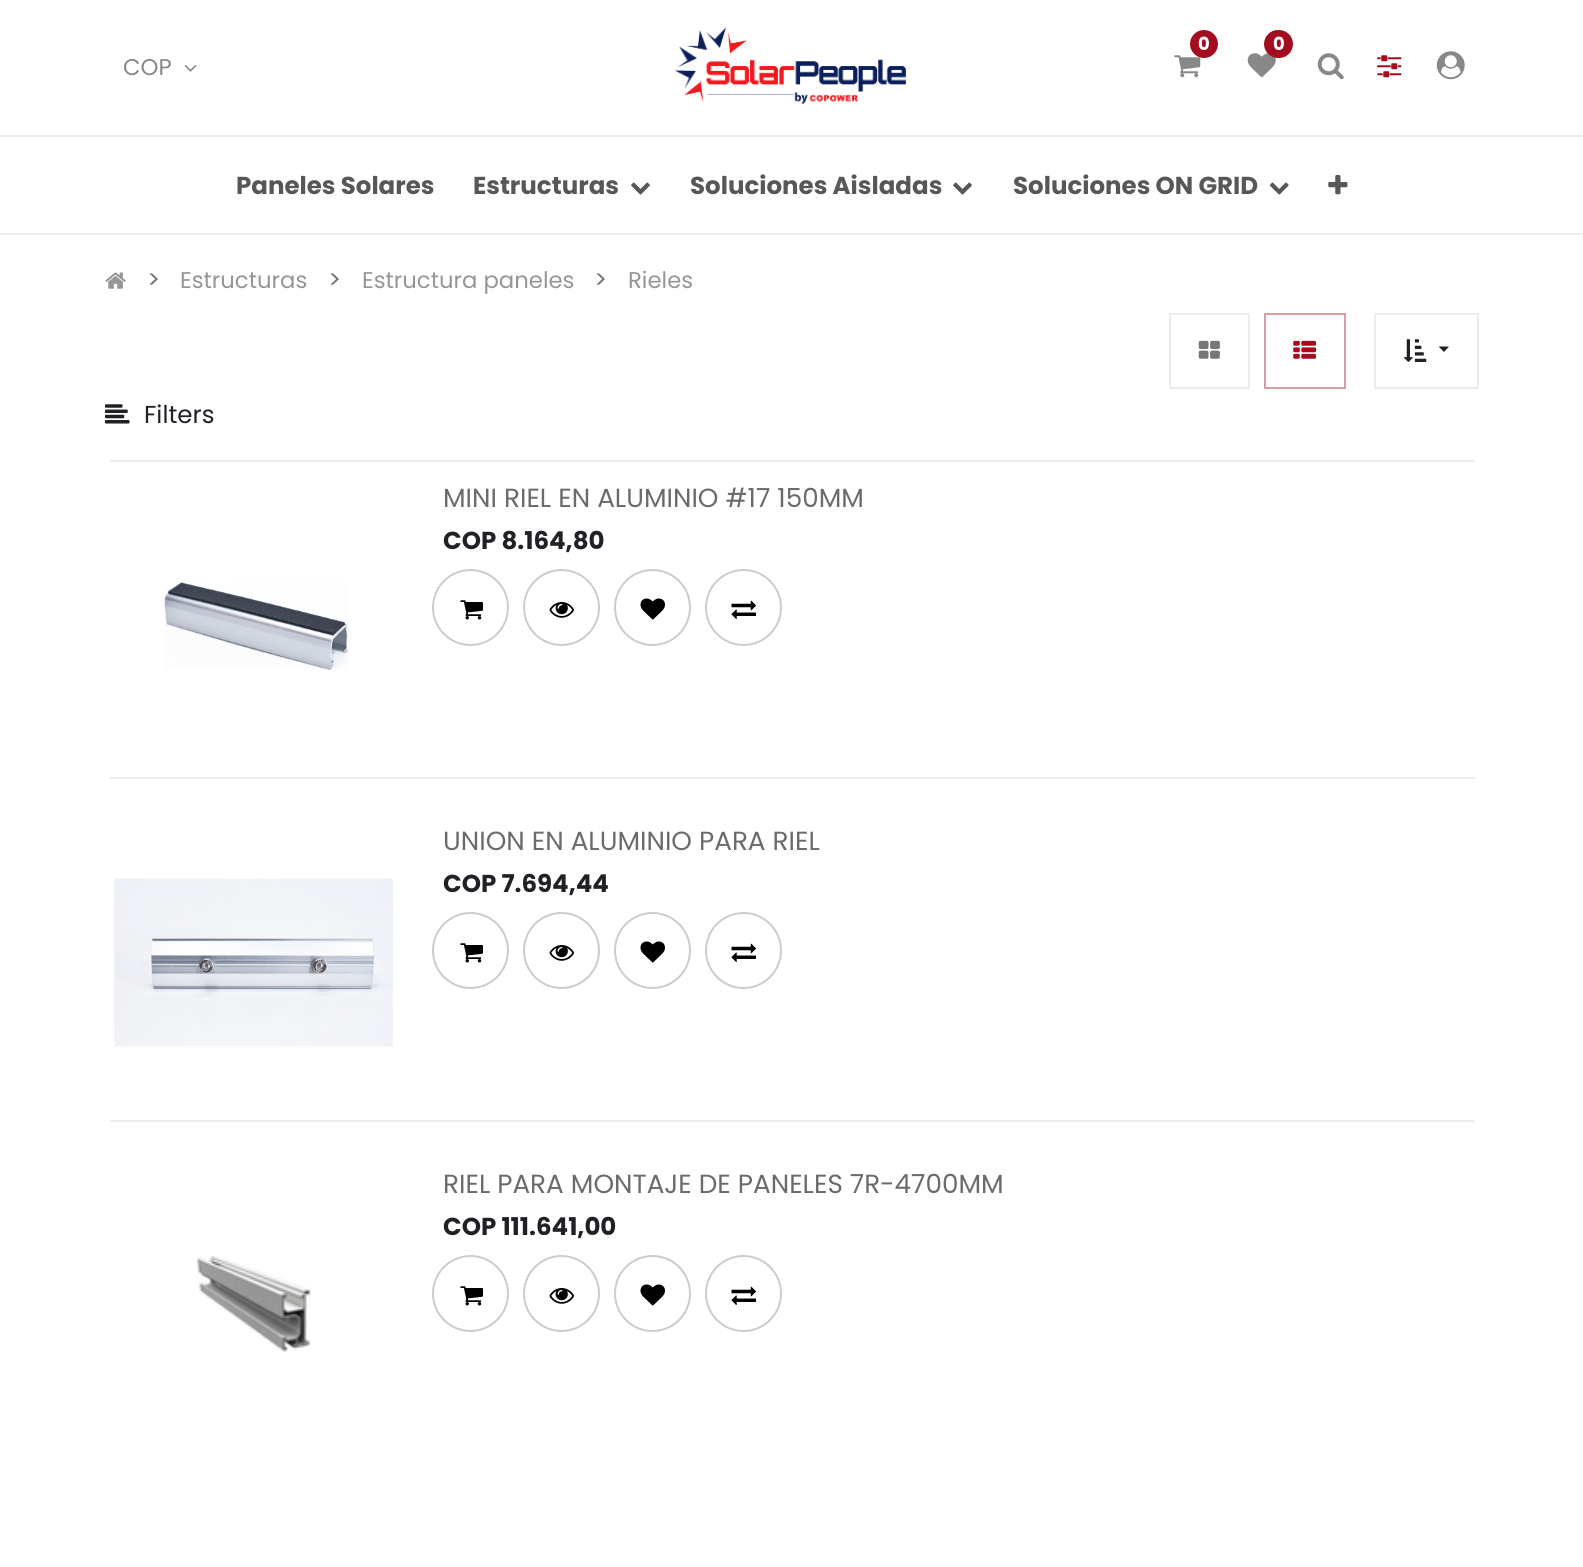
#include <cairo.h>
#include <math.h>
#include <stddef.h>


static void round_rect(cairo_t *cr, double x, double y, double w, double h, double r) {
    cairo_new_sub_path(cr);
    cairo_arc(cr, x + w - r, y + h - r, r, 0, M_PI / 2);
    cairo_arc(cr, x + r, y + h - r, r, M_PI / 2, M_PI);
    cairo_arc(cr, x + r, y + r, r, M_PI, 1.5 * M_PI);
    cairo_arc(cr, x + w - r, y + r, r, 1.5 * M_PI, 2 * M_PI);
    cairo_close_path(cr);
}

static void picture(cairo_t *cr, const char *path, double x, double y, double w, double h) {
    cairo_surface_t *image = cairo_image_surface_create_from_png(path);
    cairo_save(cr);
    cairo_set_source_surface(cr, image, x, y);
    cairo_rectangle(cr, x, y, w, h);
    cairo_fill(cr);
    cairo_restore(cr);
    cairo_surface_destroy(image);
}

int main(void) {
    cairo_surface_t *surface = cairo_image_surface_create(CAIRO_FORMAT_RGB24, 1583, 1567);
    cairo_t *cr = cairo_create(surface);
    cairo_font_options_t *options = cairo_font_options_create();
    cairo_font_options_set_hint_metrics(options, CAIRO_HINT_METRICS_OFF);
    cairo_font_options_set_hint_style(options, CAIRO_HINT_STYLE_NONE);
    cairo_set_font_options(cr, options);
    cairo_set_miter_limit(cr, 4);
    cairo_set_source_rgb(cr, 1, 1, 1);
    cairo_paint(cr);
    picture(cr, "img1.png", 675, 27, 231, 78);
    picture(cr, "img2.png", 1174, 55, 27, 23);
    cairo_set_source_rgb(cr, 0.639, 0.051, 0.122);
    cairo_arc(cr, 1204, 44, 14, 0, 2 * M_PI);
    cairo_fill(cr);
    cairo_select_font_face(cr, "Poppins", CAIRO_FONT_SLANT_NORMAL, CAIRO_FONT_WEIGHT_BOLD);
    cairo_set_font_size(cr, 18);
    cairo_set_source_rgb(cr, 1, 1, 1);
    cairo_move_to(cr, 1198, 50);
    cairo_show_text(cr, "0");
    picture(cr, "img3.png", 1247, 53, 29, 25);
    cairo_set_source_rgb(cr, 0.639, 0.051, 0.122);
    round_rect(cr, 1264, 30, 29, 28, 14);
    cairo_fill(cr);
    cairo_set_source_rgb(cr, 1, 1, 1);
    cairo_move_to(cr, 1273, 50);
    cairo_show_text(cr, "0");
    picture(cr, "img4.png", 1317, 53, 27, 27);
    picture(cr, "img5.png", 1377, 55, 25, 23);
    picture(cr, "img6.png", 1436, 51, 29, 29);
    cairo_select_font_face(cr, "Poppins", CAIRO_FONT_SLANT_NORMAL, CAIRO_FONT_WEIGHT_NORMAL);
    cairo_set_font_size(cr, 22.75);
    cairo_set_source_rgb(cr, 0.533, 0.533, 0.533);
    cairo_move_to(cr, 123, 75);
    cairo_show_text(cr, "COP");
    picture(cr, "img7.png", 184, 65, 13, 7);
    cairo_set_source_rgb(cr, 0.929, 0.929, 0.929);
    cairo_rectangle(cr, 0, 135, 1583, 2);
    cairo_fill(cr);
    cairo_rectangle(cr, 0, 233, 1583, 2);
    cairo_fill(cr);
    cairo_select_font_face(cr, "Poppins", CAIRO_FONT_SLANT_NORMAL, CAIRO_FONT_WEIGHT_BOLD);
    cairo_set_font_size(cr, 24.5);
    cairo_set_source_rgb(cr, 0.341, 0.341, 0.341);
    cairo_move_to(cr, 236, 194);
    cairo_show_text(cr, "Paneles Solares");
    cairo_move_to(cr, 473, 194);
    cairo_show_text(cr, "Estructuras");
    picture(cr, "img8.png", 631, 182, 19, 13);
    cairo_move_to(cr, 690, 194);
    cairo_show_text(cr, "Soluciones Aisladas");
    picture(cr, "img8.png", 953, 182, 19, 13);
    cairo_move_to(cr, 1013, 194);
    cairo_show_text(cr, "Soluciones ON GRID");
    picture(cr, "img9.png", 1269, 182, 20, 13);
    picture(cr, "img10.png", 1328, 175, 20, 20);
    picture(cr, "img11.png", 105, 272, 21, 17);
    cairo_select_font_face(cr, "Poppins", CAIRO_FONT_SLANT_NORMAL, CAIRO_FONT_WEIGHT_NORMAL);
    cairo_set_source_rgb(cr, 0.424, 0.459, 0.49);
    cairo_move_to(cr, 147, 288);
    cairo_show_text(cr, ">");
    cairo_set_font_size(cr, 22.75);
    cairo_set_source_rgb(cr, 0.588, 0.588, 0.588);
    cairo_move_to(cr, 180, 288);
    cairo_show_text(cr, "Estructuras");
    cairo_set_font_size(cr, 24.5);
    cairo_set_source_rgb(cr, 0.424, 0.459, 0.49);
    cairo_move_to(cr, 328, 288);
    cairo_show_text(cr, ">");
    cairo_set_font_size(cr, 22.75);
    cairo_set_source_rgb(cr, 0.588, 0.588, 0.588);
    cairo_move_to(cr, 362, 288);
    cairo_show_text(cr, "Estructura paneles");
    cairo_set_font_size(cr, 24.5);
    cairo_set_source_rgb(cr, 0.424, 0.459, 0.49);
    cairo_move_to(cr, 594, 288);
    cairo_show_text(cr, ">");
    cairo_set_font_size(cr, 22.75);
    cairo_set_source_rgb(cr, 0.588, 0.588, 0.588);
    cairo_move_to(cr, 628, 288);
    cairo_show_text(cr, "Rieles");
    cairo_rectangle(cr, 1170, 314, 79, 74);
    cairo_set_source_rgb(cr, 0.929, 0.929, 0.929);
    cairo_stroke(cr);
    picture(cr, "img12.png", 1198, 340, 22, 19);
    cairo_rectangle(cr, 1265, 314, 80, 74);
    cairo_set_source_rgb(cr, 0.855, 0.62, 0.647);
    cairo_stroke(cr);
    picture(cr, "img13.png", 1293, 340, 23, 19);
    cairo_rectangle(cr, 1375, 314, 103, 74);
    cairo_set_source_rgb(cr, 0.929, 0.929, 0.929);
    cairo_stroke(cr);
    picture(cr, "img14.png", 1404, 339, 23, 23);
    cairo_set_source_rgb(cr, 0.125, 0.125, 0.153);
    cairo_new_path(cr);
    cairo_move_to(cr, 1438.5, 346.5);
    cairo_line_to(cr, 1449, 346.5);
    cairo_line_to(cr, 1444, 352);
    cairo_close_path(cr);
    cairo_fill(cr);
    picture(cr, "img15.png", 105, 404, 25, 20);
    cairo_set_font_size(cr, 24.5);
    cairo_move_to(cr, 144, 423);
    cairo_show_text(cr, "Filters");
    cairo_set_source_rgb(cr, 0.929, 0.929, 0.929);
    cairo_rectangle(cr, 110, 460, 1365, 2);
    cairo_fill(cr);
    cairo_rectangle(cr, 110, 777, 1365, 2);
    cairo_fill(cr);
    cairo_set_font_size(cr, 26.25);
    cairo_set_source_rgb(cr, 0.42, 0.42, 0.42);
    cairo_move_to(cr, 443, 507);
    cairo_show_text(cr, "MINI RIEL EN ALUMINIO #17 150MM");
    cairo_select_font_face(cr, "Poppins", CAIRO_FONT_SLANT_NORMAL, CAIRO_FONT_WEIGHT_BOLD);
    cairo_set_font_size(cr, 24.5);
    cairo_set_source_rgb(cr, 0.125, 0.125, 0.153);
    cairo_move_to(cr, 443, 549);
    cairo_show_text(cr, "COP 8.164,80");
    cairo_new_path(cr);
    cairo_arc(cr, 470.5, 607.5, 37.5, 0, 2 * M_PI);
    cairo_set_source_rgb(cr, 0.8, 0.8, 0.8);
    cairo_stroke(cr);
    picture(cr, "img16.png", 460, 600, 23, 20);
    cairo_arc(cr, 561.5, 607.5, 37.5, 0, 2 * M_PI);
    cairo_stroke(cr);
    picture(cr, "img17.png", 549, 602, 25, 16);
    cairo_arc(cr, 652.5, 607.5, 37.5, 0, 2 * M_PI);
    cairo_stroke(cr);
    picture(cr, "img18.png", 640, 598, 25, 22);
    cairo_arc(cr, 743.5, 607.5, 37.5, 0, 2 * M_PI);
    cairo_stroke(cr);
    picture(cr, "img19.png", 731, 600, 25, 19);
    picture(cr, "img20.png", 164, 582, 185, 88);
    cairo_set_source_rgb(cr, 0.929, 0.929, 0.929);
    cairo_rectangle(cr, 110, 1120, 1365, 2);
    cairo_fill(cr);
    cairo_select_font_face(cr, "Poppins", CAIRO_FONT_SLANT_NORMAL, CAIRO_FONT_WEIGHT_NORMAL);
    cairo_set_font_size(cr, 26.25);
    cairo_set_source_rgb(cr, 0.42, 0.42, 0.42);
    cairo_move_to(cr, 443, 850);
    cairo_show_text(cr, "UNION EN ALUMINIO PARA RIEL");
    cairo_select_font_face(cr, "Poppins", CAIRO_FONT_SLANT_NORMAL, CAIRO_FONT_WEIGHT_BOLD);
    cairo_set_font_size(cr, 24.5);
    cairo_set_source_rgb(cr, 0.125, 0.125, 0.153);
    cairo_move_to(cr, 443, 892);
    cairo_show_text(cr, "COP 7.694,44");
    cairo_new_path(cr);
    cairo_arc(cr, 470.5, 950.5, 37.5, 0, 2 * M_PI);
    cairo_set_source_rgb(cr, 0.8, 0.8, 0.8);
    cairo_stroke(cr);
    picture(cr, "img16.png", 460, 943, 23, 20);
    cairo_arc(cr, 561.5, 950.5, 37.5, 0, 2 * M_PI);
    cairo_stroke(cr);
    picture(cr, "img17.png", 549, 945, 25, 16);
    cairo_arc(cr, 652.5, 950.5, 37.5, 0, 2 * M_PI);
    cairo_stroke(cr);
    picture(cr, "img18.png", 640, 941, 25, 22);
    cairo_arc(cr, 743.5, 950.5, 37.5, 0, 2 * M_PI);
    cairo_stroke(cr);
    picture(cr, "img19.png", 731, 943, 25, 19);
    picture(cr, "img21.png", 114, 878, 279, 169);
    cairo_select_font_face(cr, "Poppins", CAIRO_FONT_SLANT_NORMAL, CAIRO_FONT_WEIGHT_NORMAL);
    cairo_set_font_size(cr, 26.25);
    cairo_set_source_rgb(cr, 0.42, 0.42, 0.42);
    cairo_move_to(cr, 443, 1193);
    cairo_show_text(cr, "RIEL PARA MONTAJE DE PANELES 7R-4700MM");
    cairo_select_font_face(cr, "Poppins", CAIRO_FONT_SLANT_NORMAL, CAIRO_FONT_WEIGHT_BOLD);
    cairo_set_font_size(cr, 24.5);
    cairo_set_source_rgb(cr, 0.125, 0.125, 0.153);
    cairo_move_to(cr, 443, 1235);
    cairo_show_text(cr, "COP 111.641,00");
    cairo_new_path(cr);
    cairo_arc(cr, 470.5, 1293.5, 37.5, 0, 2 * M_PI);
    cairo_set_source_rgb(cr, 0.8, 0.8, 0.8);
    cairo_stroke(cr);
    picture(cr, "img16.png", 460, 1286, 23, 20);
    cairo_arc(cr, 561.5, 1293.5, 37.5, 0, 2 * M_PI);
    cairo_stroke(cr);
    picture(cr, "img17.png", 549, 1288, 25, 16);
    cairo_arc(cr, 652.5, 1293.5, 37.5, 0, 2 * M_PI);
    cairo_stroke(cr);
    picture(cr, "img18.png", 640, 1284, 25, 22);
    cairo_arc(cr, 743.5, 1293.5, 37.5, 0, 2 * M_PI);
    cairo_stroke(cr);
    picture(cr, "img19.png", 731, 1286, 25, 19);
    picture(cr, "img22.png", 196, 1256, 115, 96);
    cairo_surface_write_to_png(surface, "page.png");
    cairo_font_options_destroy(options);
    cairo_destroy(cr);
    cairo_surface_destroy(surface);
    return 0;
}
